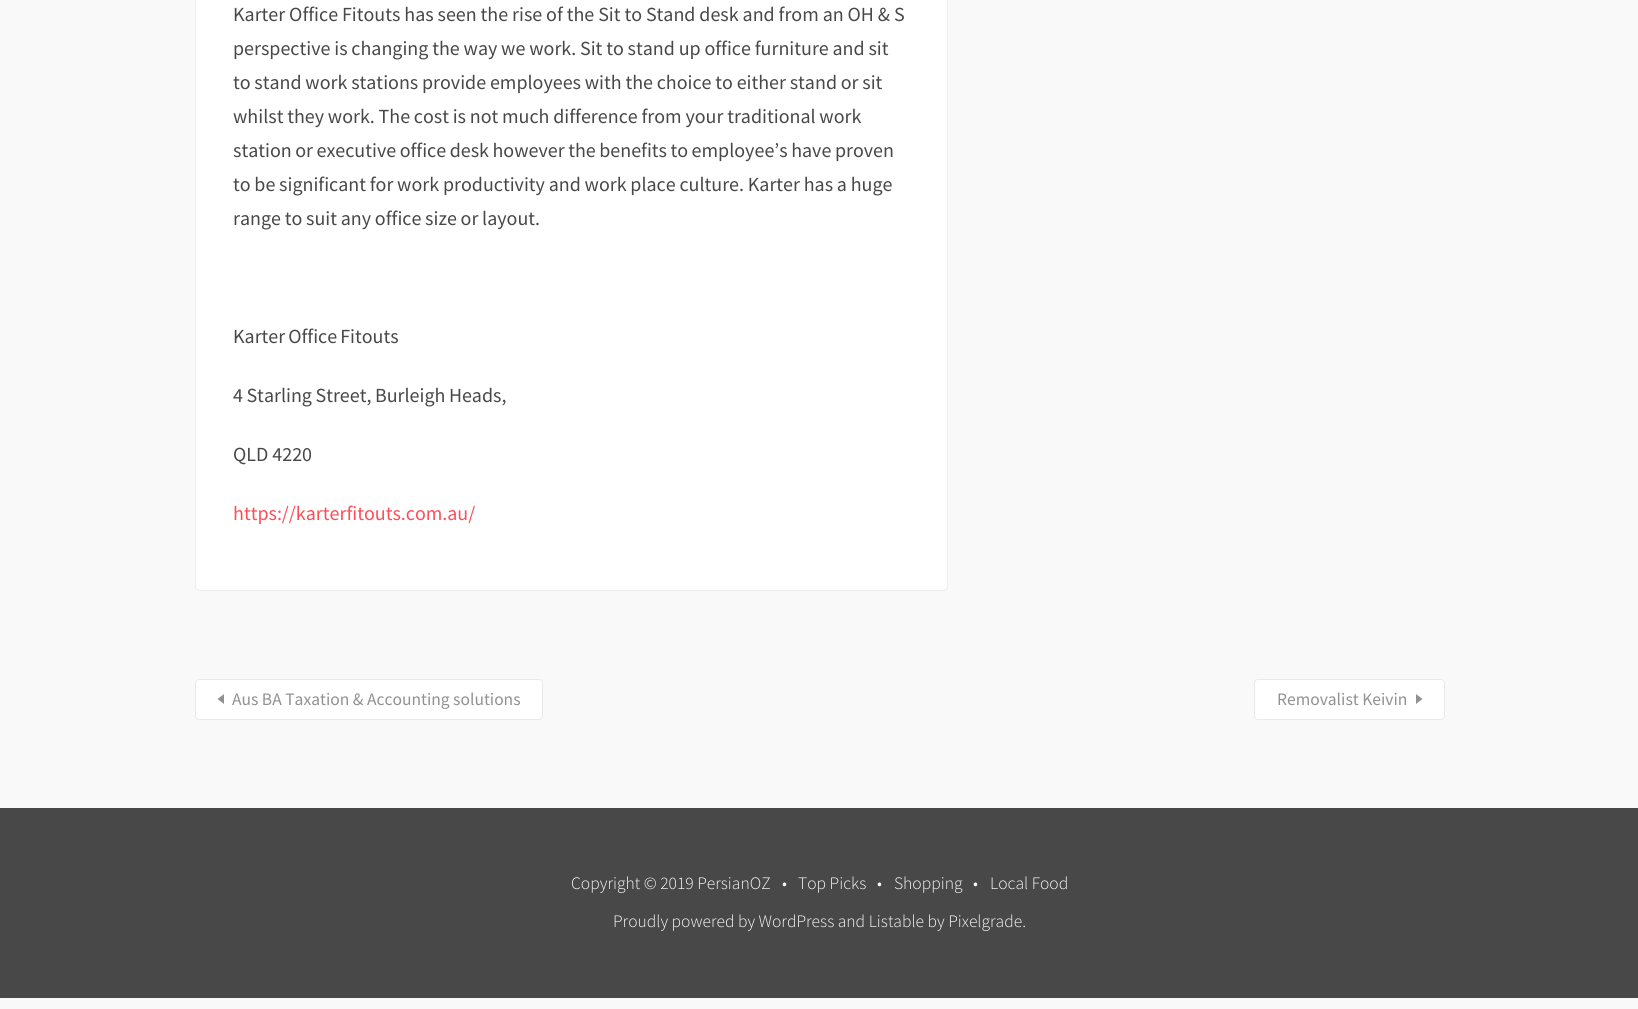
#include <cairo.h>
#include <math.h>
#include <stddef.h>


static void spaced_text(cairo_t *cr, double x, double y, const char *s, double letter, double word) {
    cairo_move_to(cr, x, y);
    while (*s) {
        char ch[5] = {0};
        int n = 0;
        do ch[n++] = *s++; while ((*s & 0xC0) == 0x80);
        cairo_show_text(cr, ch);
        cairo_rel_move_to(cr, letter + word * (*ch == ' '), 0);
    }
}

static void round_rect(cairo_t *cr, double x, double y, double w, double h, double r) {
    cairo_new_sub_path(cr);
    cairo_arc(cr, x + w - r, y + h - r, r, 0, M_PI / 2);
    cairo_arc(cr, x + r, y + h - r, r, M_PI / 2, M_PI);
    cairo_arc(cr, x + r, y + r, r, M_PI, 1.5 * M_PI);
    cairo_arc(cr, x + w - r, y + r, r, 1.5 * M_PI, 2 * M_PI);
    cairo_close_path(cr);
}

int main(void) {
    cairo_surface_t *surface = cairo_image_surface_create(CAIRO_FORMAT_RGB24, 1638, 1009);
    cairo_t *cr = cairo_create(surface);
    cairo_font_options_t *options = cairo_font_options_create();
    cairo_font_options_set_hint_metrics(options, CAIRO_HINT_METRICS_OFF);
    cairo_font_options_set_hint_style(options, CAIRO_HINT_STYLE_NONE);
    cairo_set_font_options(cr, options);
    cairo_set_miter_limit(cr, 4);
    cairo_set_source_rgb(cr, 0.976, 0.976, 0.976);
    cairo_paint(cr);
    cairo_set_source_rgb(cr, 1, 1, 1);
    round_rect(cr, 195, -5, 753, 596, 5);
    cairo_fill(cr);
    round_rect(cr, 195.5, -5.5, 752, 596, 4.5);
    cairo_set_source_rgba(cr, 0, 0, 0, 0.07);
    cairo_set_line_width(cr, 1);
    cairo_stroke(cr);
    cairo_select_font_face(cr, "Source Sans Pro", CAIRO_FONT_SLANT_NORMAL, CAIRO_FONT_WEIGHT_NORMAL);
    cairo_set_font_size(cr, 20);
    cairo_set_source_rgb(cr, 0.282, 0.282, 0.282);
    spaced_text(cr, 233, 21, "Karter Office Fitouts has seen the rise of the Sit to Stand desk and from an OH & S", 0, -0.1);
    spaced_text(cr, 233, 55, "perspective is changing the way we work. Sit to stand up office furniture and sit", 0, -0.2);
    spaced_text(cr, 233, 89, "to stand work stations provide employees with the choice to either stand or sit", 0, -0.25);
    spaced_text(cr, 233, 123, "whilst they work. The cost is not much difference from your traditional work", 0, -0.25);
    spaced_text(cr, 233, 157, "station or executive office desk however the benefits to employee’s have proven", 0, -0.5);
    spaced_text(cr, 233, 191, "to be significant for work productivity and work place culture. Karter has a huge", 0, -0.25);
    spaced_text(cr, 233, 225, "range to suit any office size or layout.", 0, -0.25);
    spaced_text(cr, 233, 343, "Karter Office Fitouts", 0, -1);
    spaced_text(cr, 233, 402, "4 Starling Street, Burleigh Heads,", 0, -0.5);
    cairo_move_to(cr, 233, 461);
    cairo_show_text(cr, "QLD 4220");
    cairo_set_source_rgb(cr, 1, 0.302, 0.345);
    cairo_move_to(cr, 233, 520);
    cairo_show_text(cr, "https://karterfitouts.com.au/");
    cairo_set_source_rgb(cr, 1, 1, 1);
    round_rect(cr, 195, 679, 348, 41, 4);
    cairo_fill(cr);
    cairo_set_source_rgb(cr, 0.569, 0.569, 0.569);
    cairo_new_path(cr);
    cairo_move_to(cr, 224, 694);
    cairo_line_to(cr, 224, 704);
    cairo_line_to(cr, 217.5, 699);
    cairo_close_path(cr);
    cairo_fill(cr);
    round_rect(cr, 195.5, 679.5, 347, 40, 3.5);
    cairo_set_source_rgb(cr, 0.914, 0.914, 0.914);
    cairo_stroke(cr);
    cairo_set_font_size(cr, 17.5);
    cairo_set_source_rgb(cr, 0.569, 0.569, 0.569);
    cairo_move_to(cr, 232, 705);
    cairo_show_text(cr, "Aus BA Taxation & Accounting solutions");
    cairo_set_source_rgb(cr, 1, 1, 1);
    round_rect(cr, 1254, 679, 191, 41, 4);
    cairo_fill(cr);
    cairo_set_source_rgb(cr, 0.569, 0.569, 0.569);
    cairo_new_path(cr);
    cairo_move_to(cr, 1416, 704);
    cairo_line_to(cr, 1416, 694);
    cairo_line_to(cr, 1422.5, 699);
    cairo_close_path(cr);
    cairo_fill(cr);
    round_rect(cr, 1254.5, 679.5, 190, 40, 3.5);
    cairo_set_source_rgb(cr, 0.914, 0.914, 0.914);
    cairo_stroke(cr);
    cairo_set_source_rgb(cr, 0.569, 0.569, 0.569);
    cairo_move_to(cr, 1277, 705);
    cairo_show_text(cr, "Removalist Keivin");
    cairo_set_source_rgb(cr, 0.282, 0.282, 0.282);
    cairo_rectangle(cr, 0, 808, 1638, 190);
    cairo_fill(cr);
    cairo_select_font_face(cr, "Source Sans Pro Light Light", CAIRO_FONT_SLANT_NORMAL, CAIRO_FONT_WEIGHT_NORMAL);
    cairo_set_source_rgb(cr, 0.976, 0.976, 0.976);
    cairo_move_to(cr, 571, 889);
    cairo_show_text(cr, "Copyright © 2019 PersianOZ");
    cairo_move_to(cr, 782, 889);
    cairo_show_text(cr, "•");
    cairo_move_to(cr, 798, 889);
    cairo_show_text(cr, "Top Picks");
    cairo_move_to(cr, 877, 889);
    cairo_show_text(cr, "•");
    cairo_move_to(cr, 894, 889);
    cairo_show_text(cr, "Shopping");
    cairo_move_to(cr, 973, 889);
    cairo_show_text(cr, "•");
    cairo_move_to(cr, 990, 889);
    cairo_show_text(cr, "Local Food");
    cairo_move_to(cr, 613, 927);
    cairo_show_text(cr, "Proudly powered by WordPress and Listable by Pixelgrade.");
    cairo_surface_write_to_png(surface, "page.png");
    cairo_font_options_destroy(options);
    cairo_destroy(cr);
    cairo_surface_destroy(surface);
    return 0;
}
